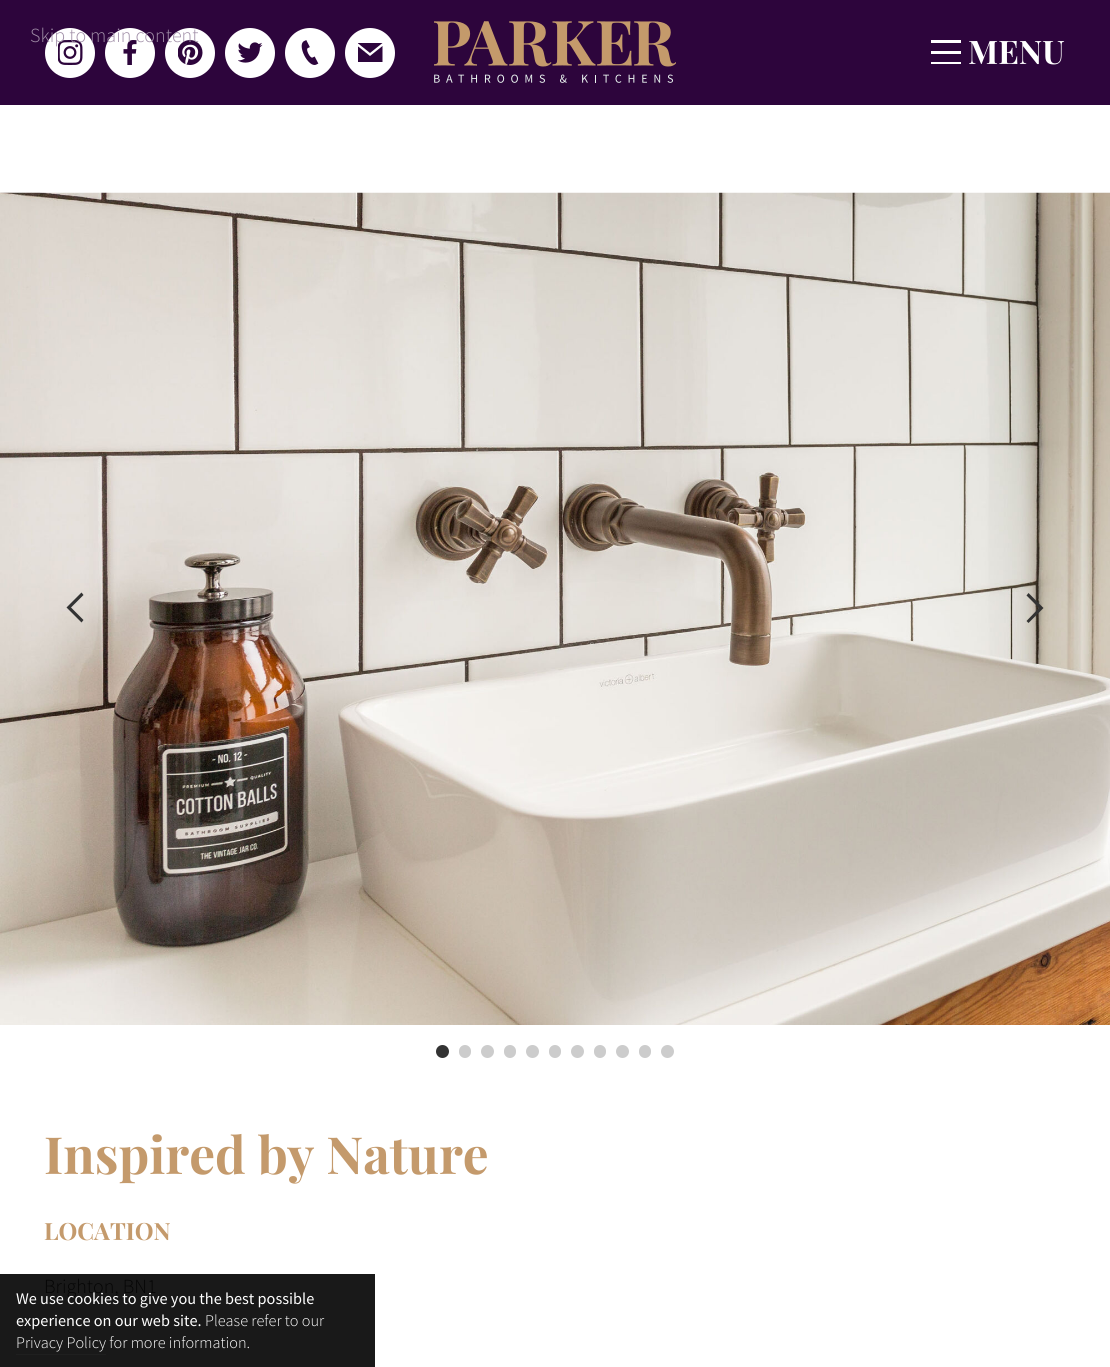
#include <cairo.h>
#include <math.h>
#include <stddef.h>


static void round_rect(cairo_t *cr, double x, double y, double w, double h, double r) {
    cairo_new_sub_path(cr);
    cairo_arc(cr, x + w - r, y + h - r, r, 0, M_PI / 2);
    cairo_arc(cr, x + r, y + h - r, r, M_PI / 2, M_PI);
    cairo_arc(cr, x + r, y + r, r, M_PI, 1.5 * M_PI);
    cairo_arc(cr, x + w - r, y + r, r, 1.5 * M_PI, 2 * M_PI);
    cairo_close_path(cr);
}

static void picture(cairo_t *cr, const char *path, double x, double y, double w, double h) {
    cairo_surface_t *image = cairo_image_surface_create_from_png(path);
    cairo_save(cr);
    cairo_set_source_surface(cr, image, x, y);
    cairo_rectangle(cr, x, y, w, h);
    cairo_fill(cr);
    cairo_restore(cr);
    cairo_surface_destroy(image);
}

int main(void) {
    cairo_surface_t *surface = cairo_image_surface_create(CAIRO_FORMAT_RGB24, 1110, 1367);
    cairo_t *cr = cairo_create(surface);
    cairo_font_options_t *options = cairo_font_options_create();
    cairo_font_options_set_hint_metrics(options, CAIRO_HINT_METRICS_OFF);
    cairo_font_options_set_hint_style(options, CAIRO_HINT_STYLE_NONE);
    cairo_set_font_options(cr, options);
    cairo_set_miter_limit(cr, 4);
    cairo_set_source_rgb(cr, 1, 1, 1);
    cairo_paint(cr);
    cairo_set_source_rgb(cr, 0.098, 0.098, 0.098);
    cairo_rectangle(cr, 0, 1274, 375, 93);
    cairo_fill(cr);
    cairo_set_source_rgb(cr, 0.176, 0.02, 0.235);
    cairo_rectangle(cr, 0, 0, 1110, 105);
    cairo_fill(cr);
    cairo_set_source_rgb(cr, 1, 1, 1);
    cairo_arc(cr, 70, 53, 25, 0, 2 * M_PI);
    cairo_fill(cr);
    picture(cr, "img1.png", 58, 40, 25, 25);
    cairo_arc(cr, 130, 53, 25, 0, 2 * M_PI);
    cairo_fill(cr);
    picture(cr, "img2.png", 123, 40, 14, 25);
    cairo_arc(cr, 190, 53, 25, 0, 2 * M_PI);
    cairo_fill(cr);
    picture(cr, "img3.png", 178, 40, 25, 25);
    cairo_select_font_face(cr, "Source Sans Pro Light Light", CAIRO_FONT_SLANT_NORMAL, CAIRO_FONT_WEIGHT_NORMAL);
    cairo_set_font_size(cr, 20);
    cairo_set_source_rgb(cr, 0.627, 0.557, 0.655);
    cairo_move_to(cr, 30, 42);
    cairo_show_text(cr, "Skip to main content");
    cairo_set_source_rgb(cr, 1, 1, 1);
    cairo_new_path(cr);
    cairo_arc(cr, 250, 53, 25, 0, 2 * M_PI);
    cairo_fill(cr);
    picture(cr, "img4.png", 238, 42, 25, 21);
    cairo_arc(cr, 310, 53, 25, 0, 2 * M_PI);
    cairo_fill(cr);
    picture(cr, "img5.png", 301, 40, 18, 25);
    cairo_arc(cr, 370, 53, 25, 0, 2 * M_PI);
    cairo_fill(cr);
    cairo_save(cr);
    cairo_rectangle(cr, 358, 40, 25, 25);
    cairo_clip(cr);
    cairo_set_source_rgb(cr, 0.176, 0.02, 0.235);
    cairo_new_path(cr);
    cairo_move_to(cr, 370, 53);
    cairo_line_to(cr, 357.5, 43);
    cairo_line_to(cr, 382.5, 43);
    cairo_close_path(cr);
    cairo_move_to(cr, 370, 56);
    cairo_line_to(cr, 357.5, 46);
    cairo_line_to(cr, 357.5, 62);
    cairo_line_to(cr, 382.5, 62);
    cairo_line_to(cr, 382.5, 46);
    cairo_close_path(cr);
    cairo_fill(cr);
    cairo_restore(cr);
    picture(cr, "img6.png", 434, 21, 242, 62);
    cairo_rectangle(cr, 931, 51, 30, 3);
    cairo_fill(cr);
    cairo_rectangle(cr, 931, 40, 30, 3);
    cairo_fill(cr);
    cairo_rectangle(cr, 931, 62, 30, 2);
    cairo_fill(cr);
    cairo_select_font_face(cr, "Playfair Display", CAIRO_FONT_SLANT_NORMAL, CAIRO_FONT_WEIGHT_BOLD);
    cairo_set_font_size(cr, 32.5);
    cairo_move_to(cr, 968, 64);
    cairo_show_text(cr, "MENU");
    picture(cr, "img7.png", 0, 192, 1110, 833);
    cairo_set_source_rgb(cr, 0.2, 0.2, 0.2);
    cairo_new_path(cr);
    cairo_move_to(cr, 83.5, 620);
    cairo_line_to(cr, 81.5, 622.5);
    cairo_line_to(cr, 66.5, 607.5);
    cairo_line_to(cr, 81.5, 592.5);
    cairo_line_to(cr, 83.5, 595);
    cairo_line_to(cr, 71, 607.5);
    cairo_close_path(cr);
    cairo_fill(cr);
    cairo_new_path(cr);
    cairo_move_to(cr, 1026.5, 595.5);
    cairo_line_to(cr, 1028.5, 593);
    cairo_line_to(cr, 1043.5, 608);
    cairo_line_to(cr, 1028.5, 623);
    cairo_line_to(cr, 1026.5, 621);
    cairo_line_to(cr, 1039, 608);
    cairo_close_path(cr);
    cairo_fill(cr);
    cairo_arc(cr, 442.5, 1051.5, 6.5, 0, 2 * M_PI);
    cairo_fill(cr);
    cairo_set_source_rgb(cr, 0.8, 0.8, 0.8);
    round_rect(cr, 459, 1045, 12, 13, 6);
    cairo_fill(cr);
    cairo_arc(cr, 487.5, 1051.5, 6.5, 0, 2 * M_PI);
    cairo_fill(cr);
    round_rect(cr, 504, 1045, 12, 13, 6);
    cairo_fill(cr);
    cairo_arc(cr, 532.5, 1051.5, 6.5, 0, 2 * M_PI);
    cairo_fill(cr);
    round_rect(cr, 549, 1045, 12, 13, 6);
    cairo_fill(cr);
    cairo_arc(cr, 577.5, 1051.5, 6.5, 0, 2 * M_PI);
    cairo_fill(cr);
    round_rect(cr, 594, 1045, 12, 13, 6);
    cairo_fill(cr);
    cairo_arc(cr, 622.5, 1051.5, 6.5, 0, 2 * M_PI);
    cairo_fill(cr);
    round_rect(cr, 639, 1045, 12, 13, 6);
    cairo_fill(cr);
    cairo_arc(cr, 667.5, 1051.5, 6.5, 0, 2 * M_PI);
    cairo_fill(cr);
    cairo_set_font_size(cr, 51.25);
    cairo_set_source_rgb(cr, 0.769, 0.604, 0.424);
    cairo_move_to(cr, 44, 1174);
    cairo_show_text(cr, "Inspired by Nature");
    cairo_set_font_size(cr, 23.75);
    cairo_move_to(cr, 44, 1240);
    cairo_show_text(cr, "LOCATION");
    cairo_select_font_face(cr, "Source Sans Pro Light Light", CAIRO_FONT_SLANT_NORMAL, CAIRO_FONT_WEIGHT_NORMAL);
    cairo_set_font_size(cr, 20);
    cairo_set_source_rgb(cr, 0.02, 0.02, 0.02);
    cairo_move_to(cr, 44, 1293);
    cairo_show_text(cr, "Brighton, BN1");
    cairo_select_font_face(cr, "Source Sans Pro", CAIRO_FONT_SLANT_NORMAL, CAIRO_FONT_WEIGHT_NORMAL);
    cairo_set_font_size(cr, 16.25);
    cairo_set_source_rgb(cr, 1, 1, 1);
    cairo_move_to(cr, 16, 1304);
    cairo_show_text(cr, "We use cookies to give you the best possible");
    cairo_move_to(cr, 16, 1326);
    cairo_show_text(cr, "experience on our web site.");
    cairo_select_font_face(cr, "Source Sans Pro Light Light", CAIRO_FONT_SLANT_NORMAL, CAIRO_FONT_WEIGHT_NORMAL);
    cairo_move_to(cr, 205, 1326);
    cairo_show_text(cr, "Please refer to our");
    cairo_move_to(cr, 16, 1348);
    cairo_show_text(cr, "Privacy Policy for more information.");
    cairo_set_source_rgba(cr, 0.2, 0.2, 0.2, 0.25);
    cairo_rectangle(cr, 16, 1354, 90, 1);
    cairo_fill(cr);
    cairo_surface_write_to_png(surface, "page.png");
    cairo_font_options_destroy(options);
    cairo_destroy(cr);
    cairo_surface_destroy(surface);
    return 0;
}
